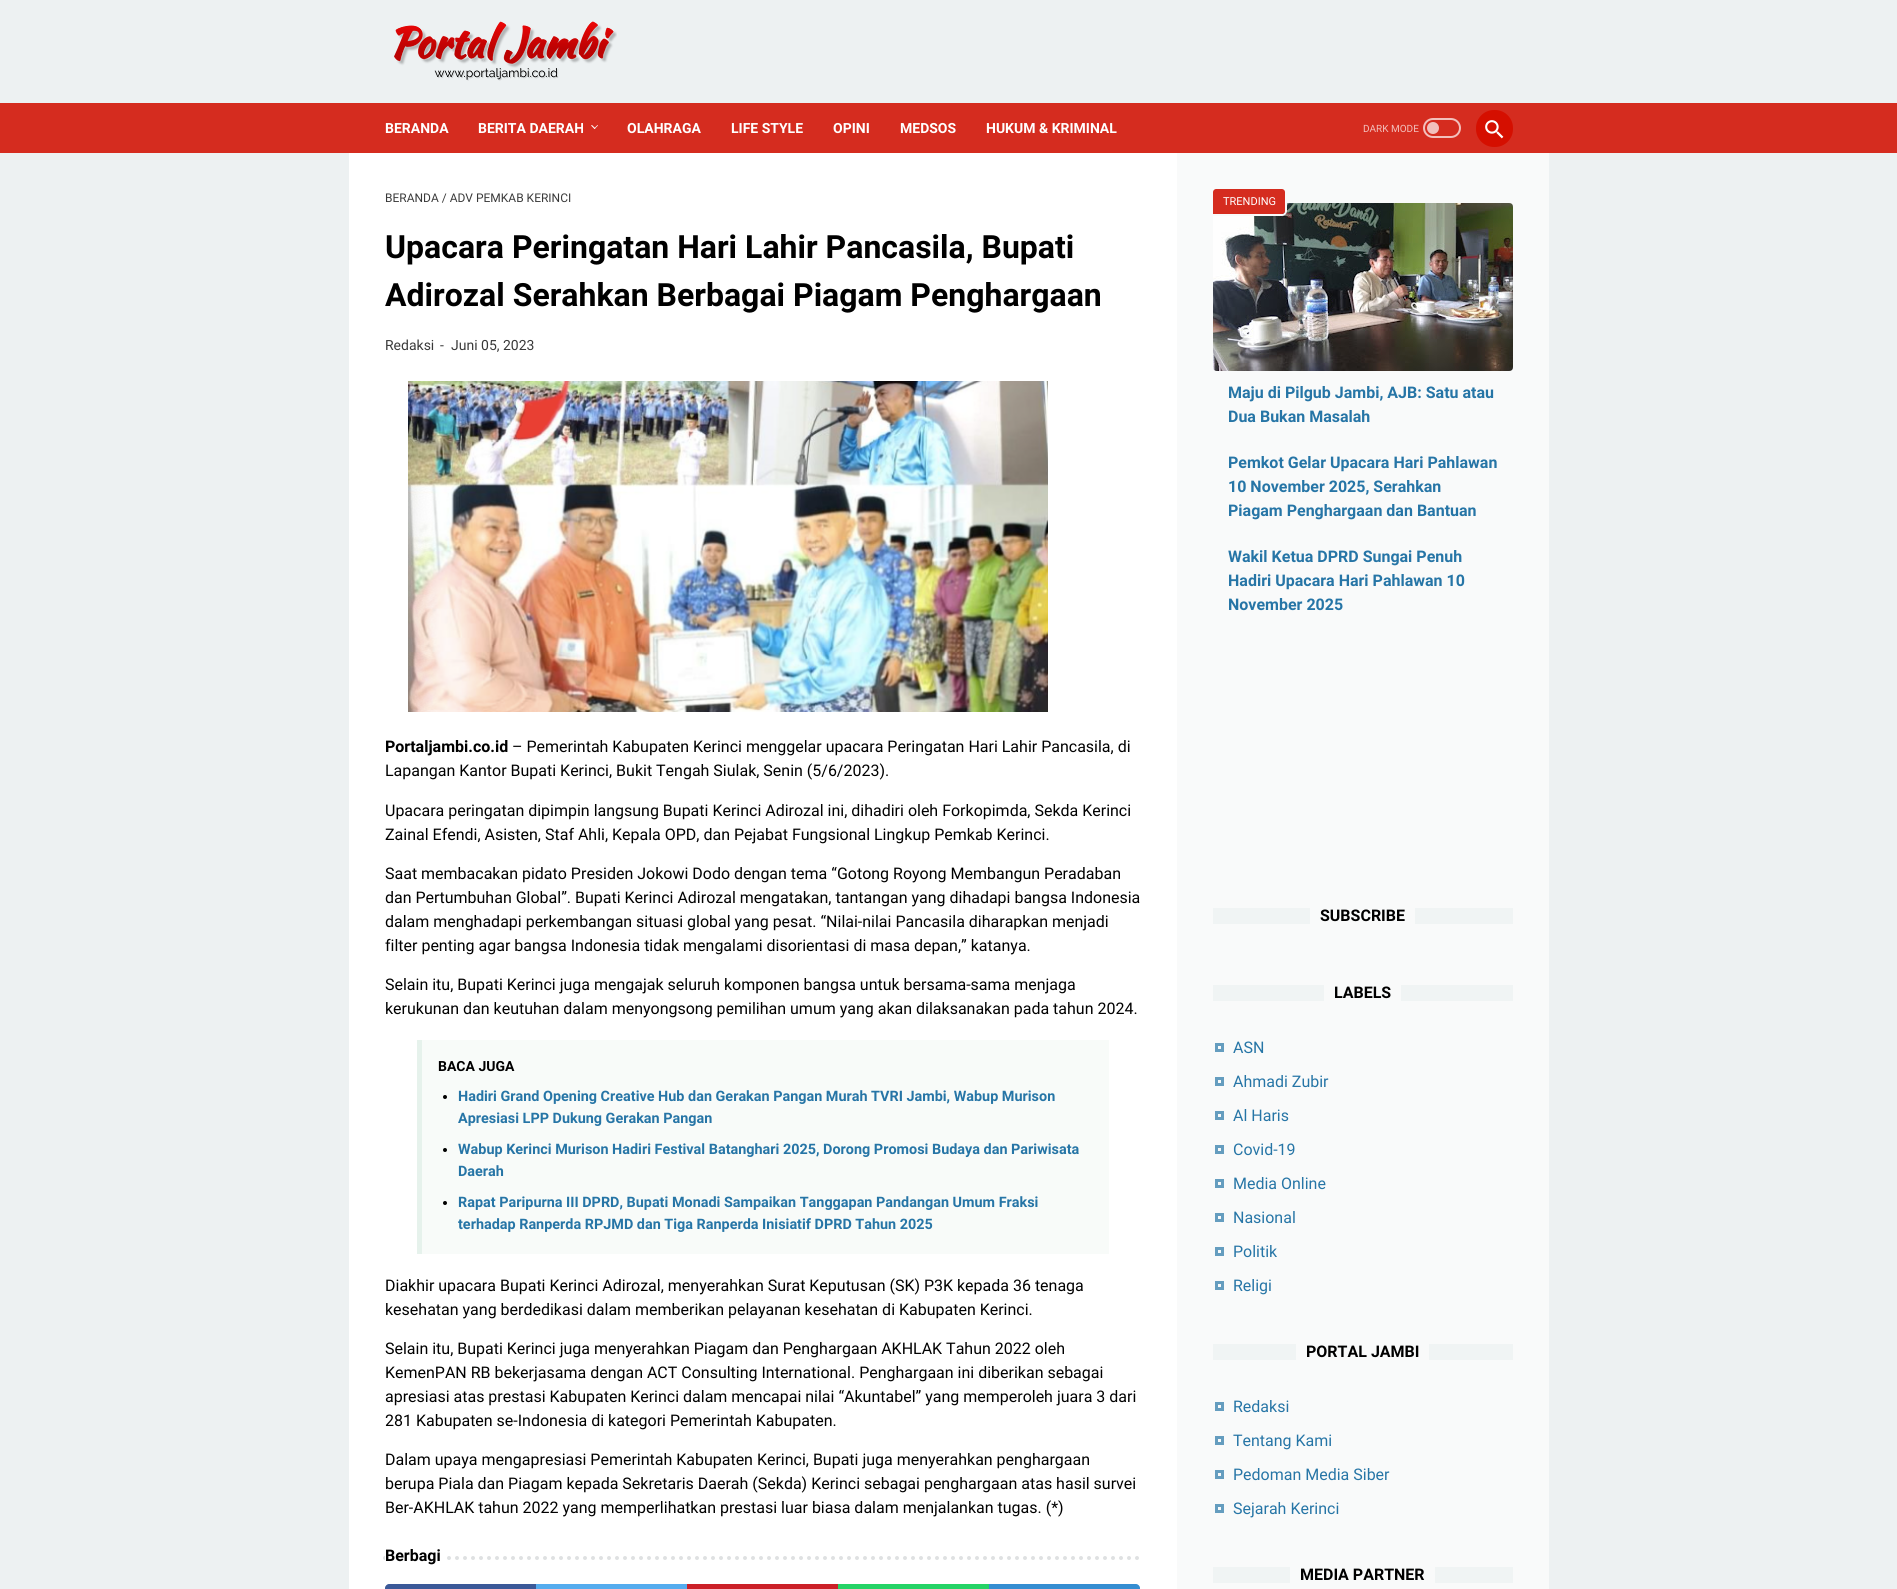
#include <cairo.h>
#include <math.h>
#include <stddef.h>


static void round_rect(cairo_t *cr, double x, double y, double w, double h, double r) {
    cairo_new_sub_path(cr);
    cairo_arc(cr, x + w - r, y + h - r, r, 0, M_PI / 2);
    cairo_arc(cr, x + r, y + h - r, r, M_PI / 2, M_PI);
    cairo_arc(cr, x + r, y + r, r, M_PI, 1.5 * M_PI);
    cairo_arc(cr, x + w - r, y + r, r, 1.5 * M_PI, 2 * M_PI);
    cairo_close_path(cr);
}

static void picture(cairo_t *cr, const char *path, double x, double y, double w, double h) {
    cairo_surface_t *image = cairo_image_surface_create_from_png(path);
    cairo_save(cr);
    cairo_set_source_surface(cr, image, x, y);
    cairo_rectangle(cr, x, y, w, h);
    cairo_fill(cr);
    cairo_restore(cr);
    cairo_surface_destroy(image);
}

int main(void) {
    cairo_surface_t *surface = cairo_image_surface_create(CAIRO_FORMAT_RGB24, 1897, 1589);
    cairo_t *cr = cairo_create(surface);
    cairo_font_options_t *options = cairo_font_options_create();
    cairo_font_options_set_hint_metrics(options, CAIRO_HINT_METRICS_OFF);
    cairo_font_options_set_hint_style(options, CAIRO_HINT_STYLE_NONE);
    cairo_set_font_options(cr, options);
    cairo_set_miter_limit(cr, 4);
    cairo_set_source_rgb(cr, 0.929, 0.945, 0.949);
    cairo_paint(cr);
    picture(cr, "img1.png", 394, 21, 223, 60);
    cairo_set_source_rgb(cr, 0.835, 0.173, 0.122);
    cairo_rectangle(cr, 0, 103, 1897, 50);
    cairo_fill(cr);
    cairo_select_font_face(cr, "Roboto", CAIRO_FONT_SLANT_NORMAL, CAIRO_FONT_WEIGHT_BOLD);
    cairo_set_font_size(cr, 14);
    cairo_set_source_rgb(cr, 1, 1, 1);
    cairo_move_to(cr, 385, 133);
    cairo_show_text(cr, "BERANDA");
    cairo_move_to(cr, 478, 133);
    cairo_show_text(cr, "BERITA DAERAH");
    cairo_new_path(cr);
    cairo_move_to(cr, 594, 128.5);
    cairo_line_to(cr, 597.5, 125);
    cairo_line_to(cr, 598, 125.5);
    cairo_line_to(cr, 594.5, 129);
    cairo_close_path(cr);
    cairo_fill(cr);
    cairo_new_path(cr);
    cairo_move_to(cr, 591, 125.5);
    cairo_line_to(cr, 592, 125);
    cairo_line_to(cr, 595.5, 128.5);
    cairo_line_to(cr, 594.5, 129);
    cairo_close_path(cr);
    cairo_fill(cr);
    cairo_move_to(cr, 627, 133);
    cairo_show_text(cr, "OLAHRAGA");
    cairo_move_to(cr, 731, 133);
    cairo_show_text(cr, "LIFE STYLE");
    cairo_move_to(cr, 833, 133);
    cairo_show_text(cr, "OPINI");
    cairo_move_to(cr, 900, 133);
    cairo_show_text(cr, "MEDSOS");
    cairo_move_to(cr, 986, 133);
    cairo_show_text(cr, "HUKUM & KRIMINAL");
    cairo_select_font_face(cr, "Roboto", CAIRO_FONT_SLANT_NORMAL, CAIRO_FONT_WEIGHT_NORMAL);
    cairo_set_font_size(cr, 10);
    cairo_set_source_rgb(cr, 0.949, 0.753, 0.737);
    cairo_move_to(cr, 1363, 132);
    cairo_show_text(cr, "DARK MODE");
    round_rect(cr, 1424, 119, 36, 18, 9);
    cairo_stroke(cr);
    cairo_arc(cr, 1433, 128, 6, 0, 2 * M_PI);
    cairo_fill(cr);
    cairo_set_source_rgb(cr, 0.835, 0.059, 0);
    round_rect(cr, 1476, 110, 37, 37, 18);
    cairo_fill(cr);
    picture(cr, "img2.png", 1485, 120, 19, 19);
    cairo_set_source_rgb(cr, 1, 1, 1);
    cairo_rectangle(cr, 349, 153, 828, 1436);
    cairo_fill(cr);
    cairo_set_font_size(cr, 12);
    cairo_set_source_rgb(cr, 0.224, 0.224, 0.224);
    cairo_move_to(cr, 385, 202);
    cairo_show_text(cr, "BERANDA / ADV PEMKAB KERINCI");
    cairo_select_font_face(cr, "Roboto", CAIRO_FONT_SLANT_NORMAL, CAIRO_FONT_WEIGHT_BOLD);
    cairo_set_font_size(cr, 32);
    cairo_set_source_rgb(cr, 0, 0, 0);
    cairo_move_to(cr, 385, 258);
    cairo_show_text(cr, "Upacara Peringatan Hari Lahir Pancasila, Bupati");
    cairo_move_to(cr, 385, 306);
    cairo_show_text(cr, "Adirozal Serahkan Berbagai Piagam Penghargaan");
    cairo_select_font_face(cr, "Roboto", CAIRO_FONT_SLANT_NORMAL, CAIRO_FONT_WEIGHT_NORMAL);
    cairo_set_font_size(cr, 14);
    cairo_set_source_rgb(cr, 0.224, 0.224, 0.224);
    cairo_move_to(cr, 385, 350);
    cairo_show_text(cr, "Redaksi");
    cairo_move_to(cr, 440, 350);
    cairo_show_text(cr, "-");
    cairo_move_to(cr, 451, 350);
    cairo_show_text(cr, "Juni 05, 2023");
    picture(cr, "img3.png", 408, 381, 640, 331);
    cairo_select_font_face(cr, "Roboto", CAIRO_FONT_SLANT_NORMAL, CAIRO_FONT_WEIGHT_BOLD);
    cairo_set_font_size(cr, 16);
    cairo_set_source_rgb(cr, 0, 0, 0);
    cairo_move_to(cr, 385, 752);
    cairo_show_text(cr, "Portaljambi.co.id");
    cairo_select_font_face(cr, "Roboto", CAIRO_FONT_SLANT_NORMAL, CAIRO_FONT_WEIGHT_NORMAL);
    cairo_move_to(cr, 512, 752);
    cairo_show_text(cr, "– Pemerintah Kabupaten Kerinci menggelar upacara Peringatan Hari Lahir Pancasila, di");
    cairo_move_to(cr, 385, 776);
    cairo_show_text(cr, "Lapangan Kantor Bupati Kerinci, Bukit Tengah Siulak, Senin (5/6/2023).");
    cairo_move_to(cr, 385, 816);
    cairo_show_text(cr, "Upacara peringatan dipimpin langsung Bupati Kerinci Adirozal ini, dihadiri oleh Forkopimda, Sekda Kerinci");
    cairo_move_to(cr, 385, 840);
    cairo_show_text(cr, "Zainal Efendi, Asisten, Staf Ahli, Kepala OPD, dan Pejabat Fungsional Lingkup Pemkab Kerinci.");
    cairo_move_to(cr, 385, 879);
    cairo_show_text(cr, "Saat membacakan pidato Presiden Jokowi Dodo dengan tema “Gotong Royong Membangun Peradaban");
    cairo_move_to(cr, 385, 903);
    cairo_show_text(cr, "dan Pertumbuhan Global”. Bupati Kerinci Adirozal mengatakan, tantangan yang dihadapi bangsa Indonesia");
    cairo_move_to(cr, 385, 927);
    cairo_show_text(cr, "dalam menghadapi perkembangan situasi global yang pesat. “Nilai-nilai Pancasila diharapkan menjadi");
    cairo_move_to(cr, 385, 951);
    cairo_show_text(cr, "filter penting agar bangsa Indonesia tidak mengalami disorientasi di masa depan,” katanya.");
    cairo_move_to(cr, 385, 990);
    cairo_show_text(cr, "Selain itu, Bupati Kerinci juga mengajak seluruh komponen bangsa untuk bersama-sama menjaga");
    cairo_move_to(cr, 385, 1014);
    cairo_show_text(cr, "kerukunan dan keutuhan dalam menyongsong pemilihan umum yang akan dilaksanakan pada tahun 2024.");
    cairo_set_source_rgb(cr, 0.969, 0.984, 0.976);
    cairo_rectangle(cr, 422, 1040, 687, 214);
    cairo_fill(cr);
    cairo_set_source_rgb(cr, 0.902, 0.949, 0.922);
    cairo_rectangle(cr, 417, 1040, 5, 214);
    cairo_fill(cr);
    cairo_select_font_face(cr, "Roboto", CAIRO_FONT_SLANT_NORMAL, CAIRO_FONT_WEIGHT_BOLD);
    cairo_set_font_size(cr, 14);
    cairo_set_source_rgb(cr, 0, 0, 0);
    cairo_move_to(cr, 438, 1071);
    cairo_show_text(cr, "BACA JUGA");
    cairo_new_path(cr);
    cairo_arc(cr, 445, 1097, 2, 0, 2 * M_PI);
    cairo_fill(cr);
    cairo_set_font_size(cr, 14.4);
    cairo_set_source_rgb(cr, 0.149, 0.459, 0.651);
    cairo_move_to(cr, 458, 1101);
    cairo_show_text(cr, "Hadiri Grand Opening Creative Hub dan Gerakan Pangan Murah TVRI Jambi, Wabup Murison");
    cairo_move_to(cr, 458, 1123);
    cairo_show_text(cr, "Apresiasi LPP Dukung Gerakan Pangan");
    cairo_set_source_rgb(cr, 0, 0, 0);
    cairo_new_path(cr);
    cairo_arc(cr, 445, 1150, 2, 0, 2 * M_PI);
    cairo_fill(cr);
    cairo_set_source_rgb(cr, 0.149, 0.459, 0.651);
    cairo_move_to(cr, 458, 1154);
    cairo_show_text(cr, "Wabup Kerinci Murison Hadiri Festival Batanghari 2025, Dorong Promosi Budaya dan Pariwisata");
    cairo_move_to(cr, 458, 1176);
    cairo_show_text(cr, "Daerah");
    cairo_set_source_rgb(cr, 0, 0, 0);
    cairo_new_path(cr);
    cairo_arc(cr, 445, 1203, 2, 0, 2 * M_PI);
    cairo_fill(cr);
    cairo_set_source_rgb(cr, 0.149, 0.459, 0.651);
    cairo_move_to(cr, 458, 1207);
    cairo_show_text(cr, "Rapat Paripurna III DPRD, Bupati Monadi Sampaikan Tanggapan Pandangan Umum Fraksi");
    cairo_move_to(cr, 458, 1229);
    cairo_show_text(cr, "terhadap Ranperda RPJMD dan Tiga Ranperda Inisiatif DPRD Tahun 2025");
    cairo_select_font_face(cr, "Roboto", CAIRO_FONT_SLANT_NORMAL, CAIRO_FONT_WEIGHT_NORMAL);
    cairo_set_font_size(cr, 16);
    cairo_set_source_rgb(cr, 0, 0, 0);
    cairo_move_to(cr, 385, 1291);
    cairo_show_text(cr, "Diakhir upacara Bupati Kerinci Adirozal, menyerahkan Surat Keputusan (SK) P3K kepada 36 tenaga");
    cairo_move_to(cr, 385, 1315);
    cairo_show_text(cr, "kesehatan yang berdedikasi dalam memberikan pelayanan kesehatan di Kabupaten Kerinci.");
    cairo_move_to(cr, 385, 1354);
    cairo_show_text(cr, "Selain itu, Bupati Kerinci juga menyerahkan Piagam dan Penghargaan AKHLAK Tahun 2022 oleh");
    cairo_move_to(cr, 385, 1378);
    cairo_show_text(cr, "KemenPAN RB bekerjasama dengan ACT Consulting International. Penghargaan ini diberikan sebagai");
    cairo_move_to(cr, 385, 1402);
    cairo_show_text(cr, "apresiasi atas prestasi Kabupaten Kerinci dalam mencapai nilai “Akuntabel” yang memperoleh juara 3 dari");
    cairo_move_to(cr, 385, 1426);
    cairo_show_text(cr, "281 Kabupaten se-Indonesia di kategori Pemerintah Kabupaten.");
    cairo_move_to(cr, 385, 1465);
    cairo_show_text(cr, "Dalam upaya mengapresiasi Pemerintah Kabupaten Kerinci, Bupati juga menyerahkan penghargaan");
    cairo_move_to(cr, 385, 1489);
    cairo_show_text(cr, "berupa Piala dan Piagam kepada Sekretaris Daerah (Sekda) Kerinci sebagai penghargaan atas hasil survei");
    cairo_move_to(cr, 385, 1513);
    cairo_show_text(cr, "Ber-AKHLAK tahun 2022 yang memperlihatkan prestasi luar biasa dalam menjalankan tugas. (*)");
    cairo_new_path(cr);
    cairo_move_to(cr, 385, 1558);
    cairo_line_to(cr, 1141, 1558);
    cairo_set_source_rgb(cr, 0.875, 0.882, 0.886);
    cairo_set_line_width(cr, 4);
    cairo_set_line_cap(cr, CAIRO_LINE_CAP_ROUND);
    cairo_set_dash(cr, (double[]){0, 8}, 2, 0);
    cairo_stroke(cr);
    cairo_set_source_rgb(cr, 1, 1, 1);
    cairo_rectangle(cr, 385, 1556, 58, 4);
    cairo_fill(cr);
    cairo_select_font_face(cr, "Roboto", CAIRO_FONT_SLANT_NORMAL, CAIRO_FONT_WEIGHT_BOLD);
    cairo_set_source_rgb(cr, 0, 0, 0);
    cairo_move_to(cr, 385, 1561);
    cairo_show_text(cr, "Berbagi");
    cairo_set_source_rgb(cr, 0.231, 0.349, 0.596);
    cairo_new_path(cr);
    cairo_move_to(cr, 389, 1584);
    cairo_line_to(cr, 536, 1584);
    cairo_line_to(cr, 536, 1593);
    cairo_line_to(cr, 389, 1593);
    cairo_curve_to(cr, 387, 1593, 385, 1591, 385, 1589);
    cairo_line_to(cr, 385, 1588);
    cairo_curve_to(cr, 385, 1586, 387, 1584, 389, 1584);
    cairo_close_path(cr);
    cairo_fill(cr);
    cairo_set_source_rgb(cr, 0.333, 0.675, 0.933);
    cairo_rectangle(cr, 536, 1584, 151, 5);
    cairo_fill(cr);
    cairo_set_source_rgb(cr, 0.796, 0.125, 0.153);
    cairo_rectangle(cr, 687, 1584, 151, 5);
    cairo_fill(cr);
    cairo_set_source_rgb(cr, 0.145, 0.827, 0.4);
    cairo_rectangle(cr, 838, 1584, 151, 5);
    cairo_fill(cr);
    cairo_set_source_rgb(cr, 0.208, 0.553, 0.82);
    cairo_new_path(cr);
    cairo_move_to(cr, 989, 1584);
    cairo_line_to(cr, 1136, 1584);
    cairo_curve_to(cr, 1138, 1584, 1140, 1586, 1140, 1588);
    cairo_line_to(cr, 1140, 1589);
    cairo_curve_to(cr, 1140, 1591, 1138, 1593, 1136, 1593);
    cairo_line_to(cr, 989, 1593);
    cairo_close_path(cr);
    cairo_fill(cr);
    cairo_set_source_rgb(cr, 0.973, 0.98, 0.98);
    cairo_rectangle(cr, 1177, 153, 372, 1436);
    cairo_fill(cr);
    picture(cr, "img4.png", 1213, 203, 300, 168);
    cairo_new_path(cr);
    cairo_move_to(cr, 1216, 188);
    cairo_line_to(cr, 1282, 188);
    cairo_curve_to(cr, 1284, 188, 1286, 190, 1286, 192);
    cairo_line_to(cr, 1286, 211);
    cairo_curve_to(cr, 1286, 213, 1284, 215, 1282, 215);
    cairo_line_to(cr, 1212, 215);
    cairo_line_to(cr, 1212, 192);
    cairo_curve_to(cr, 1212, 190, 1214, 188, 1216, 188);
    cairo_close_path(cr);
    cairo_set_line_width(cr, 2);
    cairo_set_line_cap(cr, CAIRO_LINE_CAP_BUTT);
    cairo_set_dash(cr, NULL, 0, 0);
    cairo_stroke(cr);
    cairo_set_source_rgb(cr, 0.835, 0.173, 0.122);
    cairo_new_path(cr);
    cairo_move_to(cr, 1216, 189);
    cairo_line_to(cr, 1282, 189);
    cairo_curve_to(cr, 1283.5, 189, 1285, 190.5, 1285, 192);
    cairo_line_to(cr, 1285, 211);
    cairo_curve_to(cr, 1285, 212.5, 1283.5, 214, 1282, 214);
    cairo_line_to(cr, 1213, 214);
    cairo_line_to(cr, 1213, 192);
    cairo_curve_to(cr, 1213, 190.5, 1214.5, 189, 1216, 189);
    cairo_close_path(cr);
    cairo_fill(cr);
    cairo_select_font_face(cr, "Roboto", CAIRO_FONT_SLANT_NORMAL, CAIRO_FONT_WEIGHT_NORMAL);
    cairo_set_font_size(cr, 11);
    cairo_set_source_rgb(cr, 1, 1, 1);
    cairo_move_to(cr, 1223, 205);
    cairo_show_text(cr, "TRENDING");
    cairo_select_font_face(cr, "Roboto", CAIRO_FONT_SLANT_NORMAL, CAIRO_FONT_WEIGHT_BOLD);
    cairo_set_font_size(cr, 16);
    cairo_set_source_rgb(cr, 0.149, 0.459, 0.651);
    cairo_move_to(cr, 1228, 398);
    cairo_show_text(cr, "Maju di Pilgub Jambi, AJB: Satu atau");
    cairo_move_to(cr, 1228, 422);
    cairo_show_text(cr, "Dua Bukan Masalah");
    cairo_move_to(cr, 1228, 468);
    cairo_show_text(cr, "Pemkot Gelar Upacara Hari Pahlawan");
    cairo_move_to(cr, 1228, 492);
    cairo_show_text(cr, "10 November 2025, Serahkan");
    cairo_move_to(cr, 1228, 516);
    cairo_show_text(cr, "Piagam Penghargaan dan Bantuan");
    cairo_move_to(cr, 1228, 562);
    cairo_show_text(cr, "Wakil Ketua DPRD Sungai Penuh");
    cairo_move_to(cr, 1228, 586);
    cairo_show_text(cr, "Hadiri Upacara Hari Pahlawan 10");
    cairo_move_to(cr, 1228, 610);
    cairo_show_text(cr, "November 2025");
    cairo_set_source_rgb(cr, 0.941, 0.957, 0.957);
    cairo_rectangle(cr, 1213, 908, 300, 16);
    cairo_fill(cr);
    cairo_set_source_rgb(cr, 0.973, 0.98, 0.98);
    cairo_rectangle(cr, 1310, 908, 105, 16);
    cairo_fill(cr);
    cairo_set_source_rgb(cr, 0, 0, 0);
    cairo_move_to(cr, 1320, 921);
    cairo_show_text(cr, "SUBSCRIBE");
    cairo_set_source_rgb(cr, 0.941, 0.957, 0.957);
    cairo_rectangle(cr, 1213, 985, 300, 16);
    cairo_fill(cr);
    cairo_set_source_rgb(cr, 0.973, 0.98, 0.98);
    cairo_rectangle(cr, 1324, 985, 77, 16);
    cairo_fill(cr);
    cairo_set_source_rgb(cr, 0, 0, 0);
    cairo_move_to(cr, 1334, 998);
    cairo_show_text(cr, "LABELS");
    cairo_rectangle(cr, 1216.5, 1044.5, 6, 6);
    cairo_set_source_rgb(cr, 0.396, 0.616, 0.749);
    cairo_set_line_width(cr, 3);
    cairo_stroke(cr);
    cairo_select_font_face(cr, "Roboto", CAIRO_FONT_SLANT_NORMAL, CAIRO_FONT_WEIGHT_NORMAL);
    cairo_set_source_rgb(cr, 0.149, 0.459, 0.651);
    cairo_move_to(cr, 1233, 1053);
    cairo_show_text(cr, "ASN");
    cairo_rectangle(cr, 1216.5, 1078.5, 6, 6);
    cairo_set_source_rgb(cr, 0.396, 0.616, 0.749);
    cairo_stroke(cr);
    cairo_set_source_rgb(cr, 0.149, 0.459, 0.651);
    cairo_move_to(cr, 1233, 1087);
    cairo_show_text(cr, "Ahmadi Zubir");
    cairo_rectangle(cr, 1216.5, 1112.5, 6, 6);
    cairo_set_source_rgb(cr, 0.396, 0.616, 0.749);
    cairo_stroke(cr);
    cairo_set_source_rgb(cr, 0.149, 0.459, 0.651);
    cairo_move_to(cr, 1233, 1121);
    cairo_show_text(cr, "Al Haris");
    cairo_rectangle(cr, 1216.5, 1146.5, 6, 6);
    cairo_set_source_rgb(cr, 0.396, 0.616, 0.749);
    cairo_stroke(cr);
    cairo_set_source_rgb(cr, 0.149, 0.459, 0.651);
    cairo_move_to(cr, 1233, 1155);
    cairo_show_text(cr, "Covid-19");
    cairo_rectangle(cr, 1216.5, 1180.5, 6, 6);
    cairo_set_source_rgb(cr, 0.396, 0.616, 0.749);
    cairo_stroke(cr);
    cairo_set_source_rgb(cr, 0.149, 0.459, 0.651);
    cairo_move_to(cr, 1233, 1189);
    cairo_show_text(cr, "Media Online");
    cairo_rectangle(cr, 1216.5, 1214.5, 6, 6);
    cairo_set_source_rgb(cr, 0.396, 0.616, 0.749);
    cairo_stroke(cr);
    cairo_set_source_rgb(cr, 0.149, 0.459, 0.651);
    cairo_move_to(cr, 1233, 1223);
    cairo_show_text(cr, "Nasional");
    cairo_rectangle(cr, 1216.5, 1248.5, 6, 6);
    cairo_set_source_rgb(cr, 0.396, 0.616, 0.749);
    cairo_stroke(cr);
    cairo_set_source_rgb(cr, 0.149, 0.459, 0.651);
    cairo_move_to(cr, 1233, 1257);
    cairo_show_text(cr, "Politik");
    cairo_rectangle(cr, 1216.5, 1282.5, 6, 6);
    cairo_set_source_rgb(cr, 0.396, 0.616, 0.749);
    cairo_stroke(cr);
    cairo_set_source_rgb(cr, 0.149, 0.459, 0.651);
    cairo_move_to(cr, 1233, 1291);
    cairo_show_text(cr, "Religi");
    cairo_set_source_rgb(cr, 0.941, 0.957, 0.957);
    cairo_rectangle(cr, 1213, 1344, 300, 16);
    cairo_fill(cr);
    cairo_set_source_rgb(cr, 0.973, 0.98, 0.98);
    cairo_rectangle(cr, 1296, 1344, 133, 16);
    cairo_fill(cr);
    cairo_select_font_face(cr, "Roboto", CAIRO_FONT_SLANT_NORMAL, CAIRO_FONT_WEIGHT_BOLD);
    cairo_set_source_rgb(cr, 0, 0, 0);
    cairo_move_to(cr, 1306, 1357);
    cairo_show_text(cr, "PORTAL JAMBI");
    cairo_rectangle(cr, 1216.5, 1403.5, 6, 6);
    cairo_set_source_rgb(cr, 0.396, 0.616, 0.749);
    cairo_stroke(cr);
    cairo_select_font_face(cr, "Roboto", CAIRO_FONT_SLANT_NORMAL, CAIRO_FONT_WEIGHT_NORMAL);
    cairo_set_source_rgb(cr, 0.149, 0.459, 0.651);
    cairo_move_to(cr, 1233, 1412);
    cairo_show_text(cr, "Redaksi");
    cairo_rectangle(cr, 1216.5, 1437.5, 6, 6);
    cairo_set_source_rgb(cr, 0.396, 0.616, 0.749);
    cairo_stroke(cr);
    cairo_set_source_rgb(cr, 0.149, 0.459, 0.651);
    cairo_move_to(cr, 1233, 1446);
    cairo_show_text(cr, "Tentang Kami");
    cairo_rectangle(cr, 1216.5, 1471.5, 6, 6);
    cairo_set_source_rgb(cr, 0.396, 0.616, 0.749);
    cairo_stroke(cr);
    cairo_set_source_rgb(cr, 0.149, 0.459, 0.651);
    cairo_move_to(cr, 1233, 1480);
    cairo_show_text(cr, "Pedoman Media Siber");
    cairo_rectangle(cr, 1216.5, 1505.5, 6, 6);
    cairo_set_source_rgb(cr, 0.396, 0.616, 0.749);
    cairo_stroke(cr);
    cairo_set_source_rgb(cr, 0.149, 0.459, 0.651);
    cairo_move_to(cr, 1233, 1514);
    cairo_show_text(cr, "Sejarah Kerinci");
    cairo_set_source_rgb(cr, 0.941, 0.957, 0.957);
    cairo_rectangle(cr, 1213, 1567, 300, 16);
    cairo_fill(cr);
    cairo_set_source_rgb(cr, 0.973, 0.98, 0.98);
    cairo_rectangle(cr, 1290, 1567, 145, 16);
    cairo_fill(cr);
    cairo_select_font_face(cr, "Roboto", CAIRO_FONT_SLANT_NORMAL, CAIRO_FONT_WEIGHT_BOLD);
    cairo_set_source_rgb(cr, 0, 0, 0);
    cairo_move_to(cr, 1300, 1580);
    cairo_show_text(cr, "MEDIA PARTNER");
    cairo_surface_write_to_png(surface, "page.png");
    cairo_font_options_destroy(options);
    cairo_destroy(cr);
    cairo_surface_destroy(surface);
    return 0;
}
